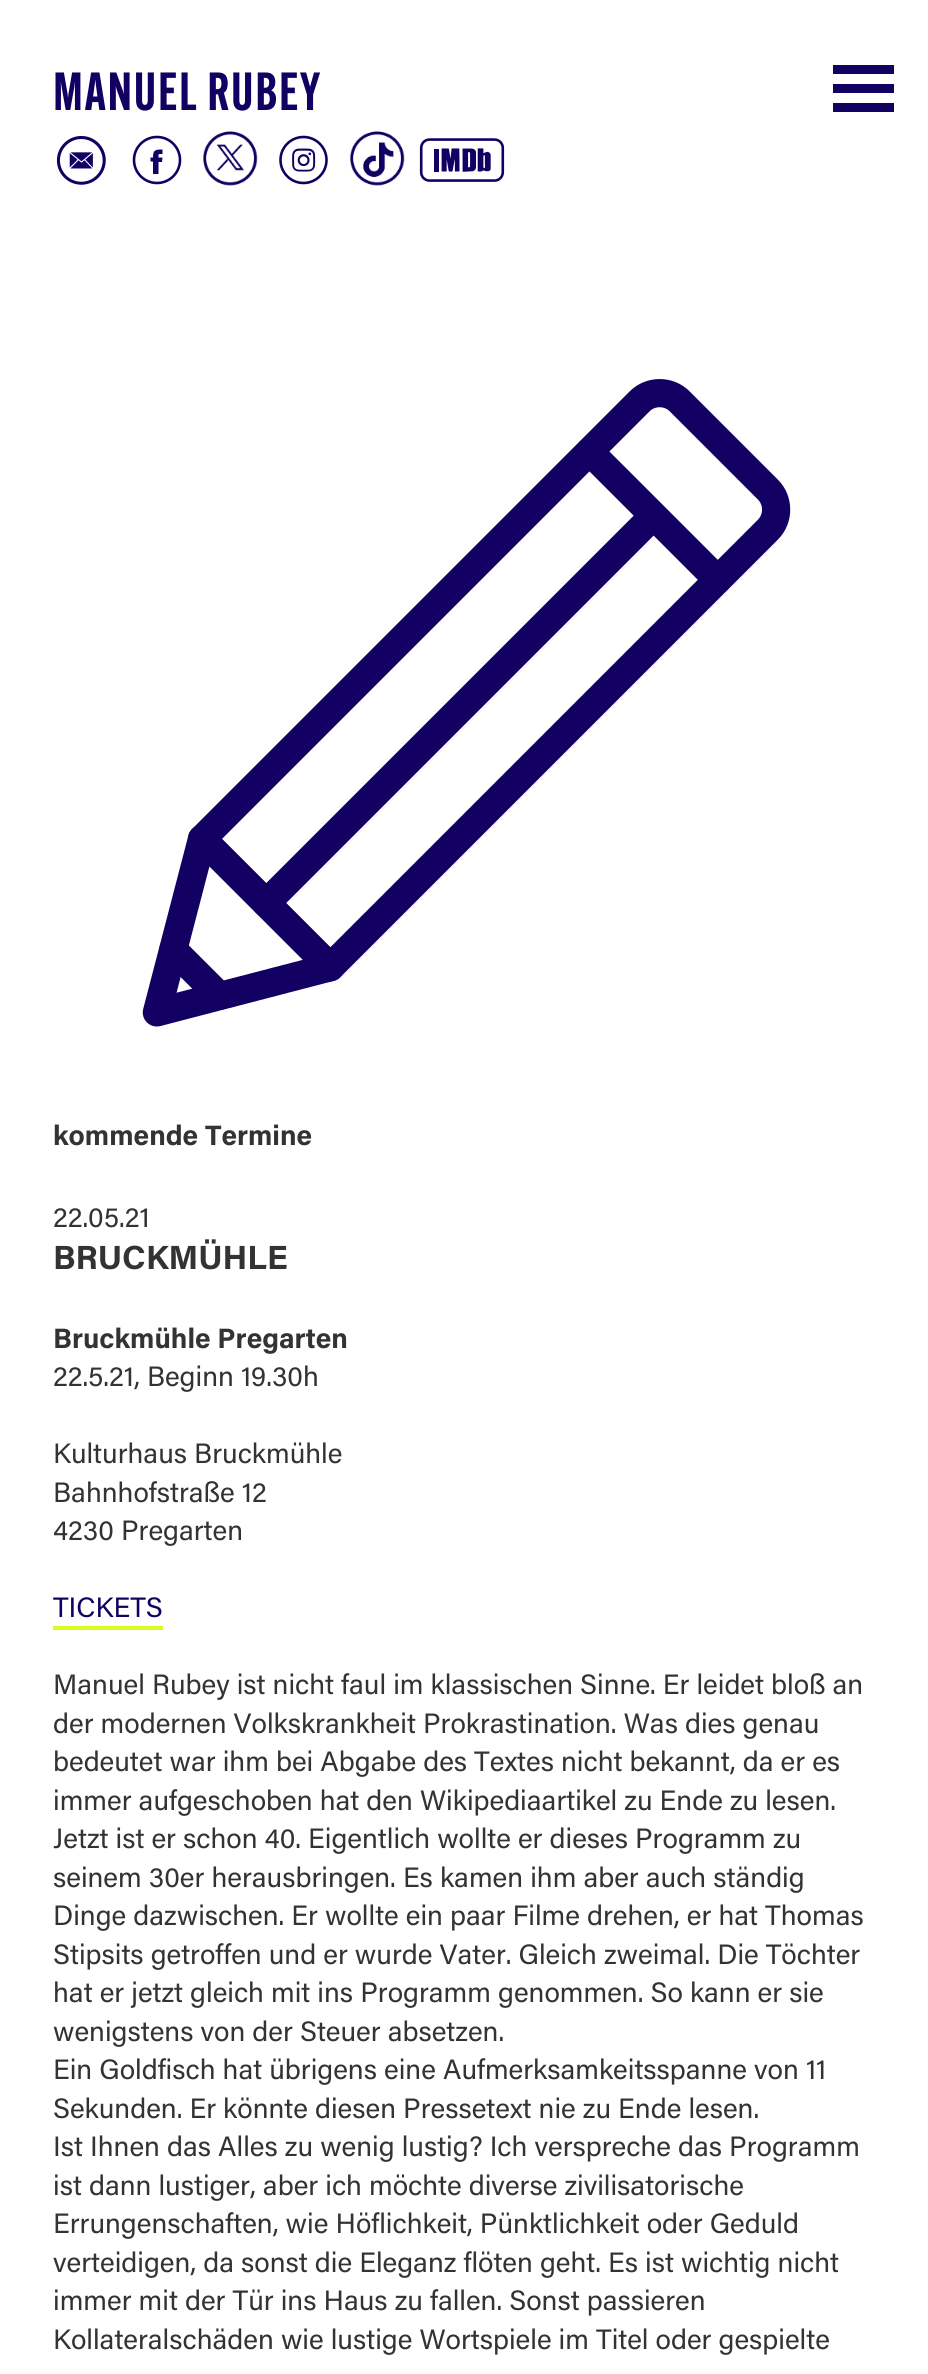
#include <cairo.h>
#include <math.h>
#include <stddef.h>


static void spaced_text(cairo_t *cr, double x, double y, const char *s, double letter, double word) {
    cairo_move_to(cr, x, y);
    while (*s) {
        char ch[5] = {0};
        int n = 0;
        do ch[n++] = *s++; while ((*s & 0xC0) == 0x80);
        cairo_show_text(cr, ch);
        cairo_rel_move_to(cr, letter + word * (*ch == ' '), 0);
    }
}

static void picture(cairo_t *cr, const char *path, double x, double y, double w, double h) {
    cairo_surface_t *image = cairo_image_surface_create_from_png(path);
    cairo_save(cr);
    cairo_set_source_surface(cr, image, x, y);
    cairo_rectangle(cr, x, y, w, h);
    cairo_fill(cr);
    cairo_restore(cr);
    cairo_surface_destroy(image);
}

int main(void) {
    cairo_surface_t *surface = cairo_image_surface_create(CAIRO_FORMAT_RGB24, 928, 2374);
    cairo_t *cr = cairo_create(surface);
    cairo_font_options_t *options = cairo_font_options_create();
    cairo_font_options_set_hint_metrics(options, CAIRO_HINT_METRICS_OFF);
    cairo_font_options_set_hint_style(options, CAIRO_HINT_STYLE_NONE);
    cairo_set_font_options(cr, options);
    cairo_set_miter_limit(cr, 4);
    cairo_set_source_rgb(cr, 1, 1, 1);
    cairo_paint(cr);
    cairo_select_font_face(cr, "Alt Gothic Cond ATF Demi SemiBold", CAIRO_FONT_SLANT_NORMAL, CAIRO_FONT_WEIGHT_NORMAL);
    cairo_set_font_size(cr, 52.5);
    cairo_set_source_rgb(cr, 0.071, 0, 0.384);
    spaced_text(cr, 53, 110, "MANUEL RUBEY", 1.75, 0);
    cairo_rectangle(cr, 833, 65, 61, 9);
    cairo_fill(cr);
    cairo_rectangle(cr, 833, 84, 61, 9);
    cairo_fill(cr);
    cairo_rectangle(cr, 833, 103, 61, 9);
    cairo_fill(cr);
    picture(cr, "img1.png", 56, 136, 50, 49);
    cairo_arc(cr, 157, 160, 23, 0, 2 * M_PI);
    cairo_set_line_width(cr, 2.6);
    cairo_stroke(cr);
    cairo_set_fill_rule(cr, CAIRO_FILL_RULE_EVEN_ODD);
    cairo_new_path(cr);
    cairo_move_to(cr, 158.5, 174);
    cairo_line_to(cr, 153, 174);
    cairo_line_to(cr, 153, 161.5);
    cairo_line_to(cr, 150.5, 161.5);
    cairo_line_to(cr, 150.5, 157.5);
    cairo_line_to(cr, 153, 157.5);
    cairo_curve_to(cr, 153, 150, 155, 149.5, 162.5, 149.5);
    cairo_line_to(cr, 162.5, 154);
    cairo_curve_to(cr, 158, 154, 158.5, 153.5, 158.5, 157.5);
    cairo_line_to(cr, 162.5, 157.5);
    cairo_line_to(cr, 162, 162);
    cairo_line_to(cr, 158.5, 162);
    cairo_close_path(cr);
    cairo_fill(cr);
    picture(cr, "img2.png", 203, 131, 55, 55);
    picture(cr, "img3.png", 279, 135, 49, 50);
    picture(cr, "img4.png", 350, 131, 55, 55);
    picture(cr, "img5.png", 419, 138, 86, 44);
    picture(cr, "img6.png", 142, 379, 649, 648);
    cairo_select_font_face(cr, "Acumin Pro", CAIRO_FONT_SLANT_NORMAL, CAIRO_FONT_WEIGHT_BOLD);
    cairo_set_font_size(cr, 28);
    cairo_set_source_rgb(cr, 0.2, 0.2, 0.2);
    cairo_move_to(cr, 53, 1145);
    cairo_show_text(cr, "kommende Termine");
    cairo_select_font_face(cr, "Acumin Pro", CAIRO_FONT_SLANT_NORMAL, CAIRO_FONT_WEIGHT_NORMAL);
    cairo_move_to(cr, 53, 1227);
    cairo_show_text(cr, "22.05.21");
    cairo_select_font_face(cr, "Acumin Pro", CAIRO_FONT_SLANT_NORMAL, CAIRO_FONT_WEIGHT_BOLD);
    cairo_set_font_size(cr, 33.5);
    cairo_move_to(cr, 53, 1269);
    cairo_show_text(cr, "BRUCKMÜHLE");
    cairo_set_font_size(cr, 28);
    cairo_move_to(cr, 53, 1348);
    cairo_show_text(cr, "Bruckmühle Pregarten");
    cairo_select_font_face(cr, "Acumin Pro", CAIRO_FONT_SLANT_NORMAL, CAIRO_FONT_WEIGHT_NORMAL);
    cairo_move_to(cr, 53, 1386);
    cairo_show_text(cr, "22.5.21, Beginn 19.30h");
    cairo_move_to(cr, 53, 1463);
    cairo_show_text(cr, "Kulturhaus Bruckmühle");
    cairo_move_to(cr, 53, 1502);
    cairo_show_text(cr, "Bahnhofstraße 12");
    cairo_move_to(cr, 53, 1540);
    cairo_show_text(cr, "4230 Pregarten");
    cairo_set_source_rgb(cr, 0.071, 0, 0.384);
    cairo_move_to(cr, 53, 1617);
    cairo_show_text(cr, "TICKETS");
    cairo_set_source_rgb(cr, 0.843, 0.996, 0.118);
    cairo_rectangle(cr, 53, 1626, 110, 4);
    cairo_fill(cr);
    cairo_set_source_rgb(cr, 0.2, 0.2, 0.2);
    cairo_move_to(cr, 53, 1694);
    cairo_show_text(cr, "Manuel Rubey ist nicht faul im klassischen Sinne. Er leidet bloß an");
    cairo_move_to(cr, 53, 1733);
    cairo_show_text(cr, "der modernen Volkskrankheit Prokrastination. Was dies genau");
    cairo_move_to(cr, 53, 1771);
    cairo_show_text(cr, "bedeutet war ihm bei Abgabe des Textes nicht bekannt, da er es");
    cairo_move_to(cr, 53, 1810);
    cairo_show_text(cr, "immer aufgeschoben hat den Wikipediaartikel zu Ende zu lesen.");
    cairo_move_to(cr, 53, 1848);
    cairo_show_text(cr, "Jetzt ist er schon 40. Eigentlich wollte er dieses Programm zu");
    cairo_move_to(cr, 53, 1887);
    cairo_show_text(cr, "seinem 30er herausbringen. Es kamen ihm aber auch ständig");
    cairo_move_to(cr, 53, 1925);
    cairo_show_text(cr, "Dinge dazwischen. Er wollte ein paar Filme drehen, er hat Thomas");
    cairo_move_to(cr, 53, 1964);
    cairo_show_text(cr, "Stipsits getroffen und er wurde Vater. Gleich zweimal. Die Töchter");
    cairo_move_to(cr, 53, 2002);
    cairo_show_text(cr, "hat er jetzt gleich mit ins Programm genommen. So kann er sie");
    cairo_move_to(cr, 53, 2041);
    cairo_show_text(cr, "wenigstens von der Steuer absetzen.");
    cairo_move_to(cr, 53, 2079);
    cairo_show_text(cr, "Ein Goldfisch hat übrigens eine Aufmerksamkeitsspanne von 11");
    cairo_move_to(cr, 53, 2118);
    cairo_show_text(cr, "Sekunden. Er könnte diesen Pressetext nie zu Ende lesen.");
    cairo_move_to(cr, 53, 2156);
    cairo_show_text(cr, "Ist Ihnen das Alles zu wenig lustig? Ich verspreche das Programm");
    cairo_move_to(cr, 53, 2195);
    cairo_show_text(cr, "ist dann lustiger, aber ich möchte diverse zivilisatorische");
    cairo_move_to(cr, 53, 2233);
    cairo_show_text(cr, "Errungenschaften, wie Höflichkeit, Pünktlichkeit oder Geduld");
    cairo_move_to(cr, 53, 2272);
    cairo_show_text(cr, "verteidigen, da sonst die Eleganz flöten geht. Es ist wichtig nicht");
    cairo_move_to(cr, 53, 2310);
    cairo_show_text(cr, "immer mit der Tür ins Haus zu fallen. Sonst passieren");
    cairo_move_to(cr, 53, 2349);
    cairo_show_text(cr, "Kollateralschäden wie lustige Wortspiele im Titel oder gespielte");
    cairo_surface_write_to_png(surface, "page.png");
    cairo_font_options_destroy(options);
    cairo_destroy(cr);
    cairo_surface_destroy(surface);
    return 0;
}
